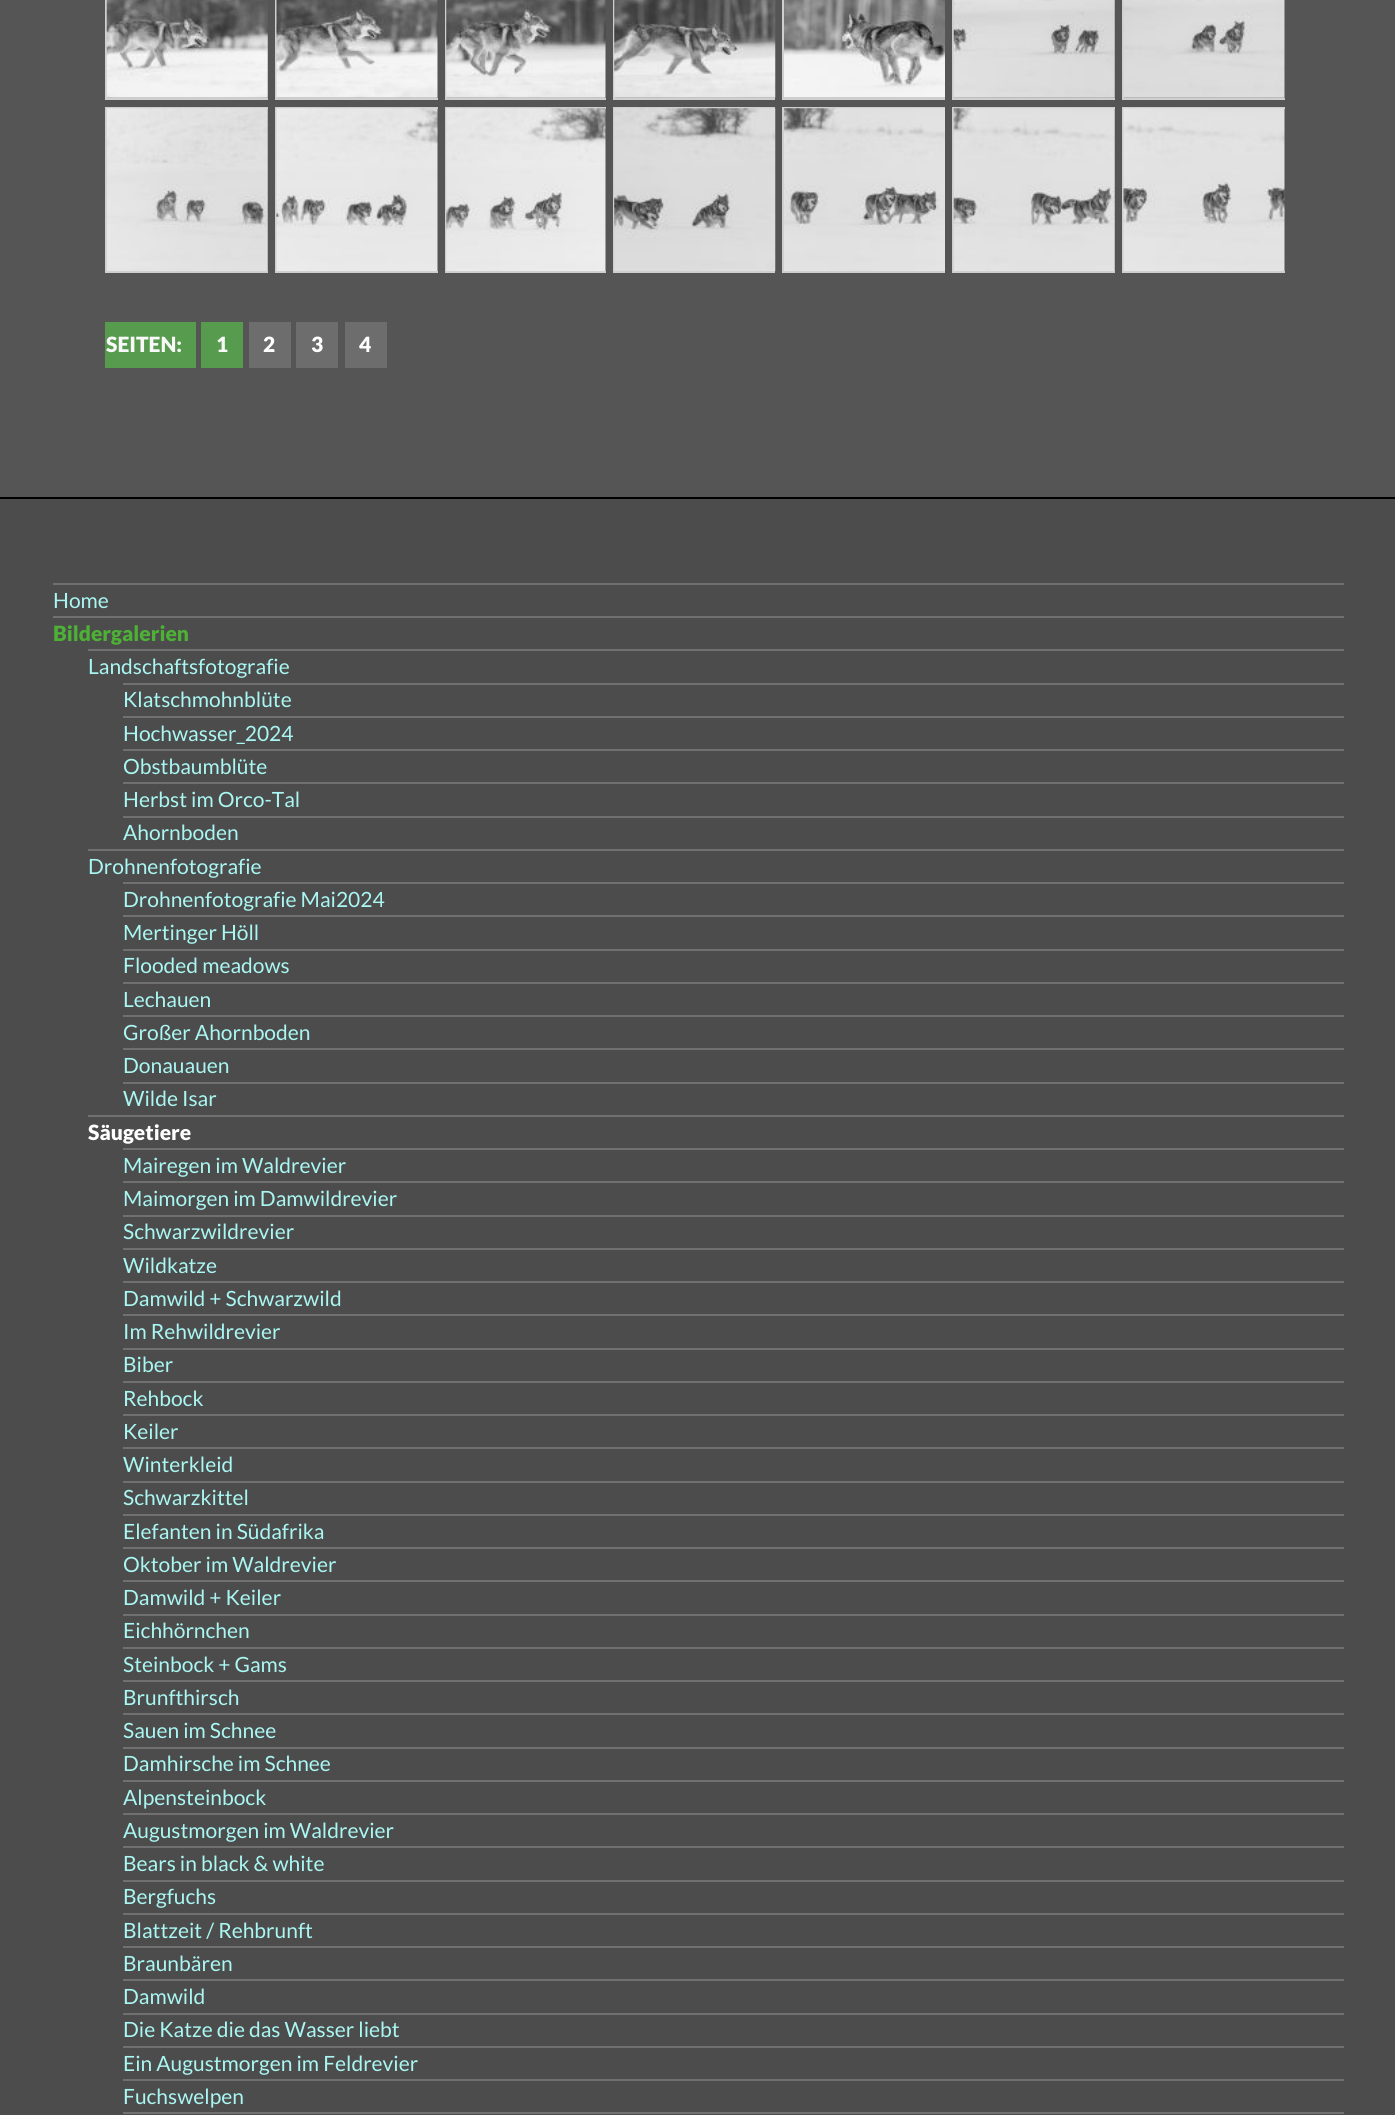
#include <cairo.h>
#include <math.h>
#include <stddef.h>


static void picture(cairo_t *cr, const char *path, double x, double y, double w, double h) {
    cairo_surface_t *image = cairo_image_surface_create_from_png(path);
    cairo_save(cr);
    cairo_set_source_surface(cr, image, x, y);
    cairo_rectangle(cr, x, y, w, h);
    cairo_fill(cr);
    cairo_restore(cr);
    cairo_surface_destroy(image);
}

int main(void) {
    cairo_surface_t *surface = cairo_image_surface_create(CAIRO_FORMAT_RGB24, 1395, 2115);
    cairo_t *cr = cairo_create(surface);
    cairo_font_options_t *options = cairo_font_options_create();
    cairo_font_options_set_hint_metrics(options, CAIRO_HINT_METRICS_OFF);
    cairo_font_options_set_hint_style(options, CAIRO_HINT_STYLE_NONE);
    cairo_set_font_options(cr, options);
    cairo_set_miter_limit(cr, 4);
    cairo_set_source_rgb(cr, 0.333, 0.333, 0.333);
    cairo_paint(cr);
    cairo_save(cr);
    cairo_rectangle(cr, 105, 0, 163, 100);
    cairo_clip(cr);
    cairo_rectangle(cr, 106, -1, 164, 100);
    cairo_set_source_rgb(cr, 0.812, 0.812, 0.812);
    cairo_stroke(cr);
    cairo_restore(cr);
    picture(cr, "img1.png", 106, 0, 162, 98);
    cairo_save(cr);
    cairo_rectangle(cr, 275, 0, 163, 100);
    cairo_clip(cr);
    cairo_rectangle(cr, 276, -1, 164, 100);
    cairo_set_source_rgb(cr, 0.812, 0.812, 0.812);
    cairo_stroke(cr);
    cairo_restore(cr);
    picture(cr, "img2.png", 276, 0, 162, 98);
    cairo_save(cr);
    cairo_rectangle(cr, 445, 0, 161, 100);
    cairo_clip(cr);
    cairo_rectangle(cr, 446, -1, 162, 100);
    cairo_set_source_rgb(cr, 0.812, 0.812, 0.812);
    cairo_stroke(cr);
    cairo_restore(cr);
    picture(cr, "img3.png", 446, 0, 160, 98);
    cairo_save(cr);
    cairo_rectangle(cr, 613, 0, 162, 100);
    cairo_clip(cr);
    cairo_rectangle(cr, 614, -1, 164, 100);
    cairo_set_source_rgb(cr, 0.812, 0.812, 0.812);
    cairo_stroke(cr);
    cairo_restore(cr);
    picture(cr, "img4.png", 614, 0, 162, 98);
    cairo_save(cr);
    cairo_rectangle(cr, 782, 0, 163, 100);
    cairo_clip(cr);
    cairo_rectangle(cr, 783, -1, 165, 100);
    cairo_set_source_rgb(cr, 0.812, 0.812, 0.812);
    cairo_stroke(cr);
    cairo_restore(cr);
    picture(cr, "img5.png", 784, 0, 161, 98);
    cairo_save(cr);
    cairo_rectangle(cr, 952, 0, 163, 100);
    cairo_clip(cr);
    cairo_rectangle(cr, 953, -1, 164, 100);
    cairo_set_source_rgb(cr, 0.812, 0.812, 0.812);
    cairo_stroke(cr);
    cairo_restore(cr);
    picture(cr, "img6.png", 953, 0, 162, 98);
    cairo_save(cr);
    cairo_rectangle(cr, 1122, 0, 163, 100);
    cairo_clip(cr);
    cairo_rectangle(cr, 1123, -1, 164, 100);
    cairo_set_source_rgb(cr, 0.812, 0.812, 0.812);
    cairo_stroke(cr);
    cairo_restore(cr);
    picture(cr, "img7.png", 1123, 0, 162, 98);
    cairo_save(cr);
    cairo_rectangle(cr, 105, 107, 163, 166);
    cairo_clip(cr);
    cairo_rectangle(cr, 106, 108, 164, 164);
    cairo_set_source_rgb(cr, 0.812, 0.812, 0.812);
    cairo_stroke(cr);
    cairo_restore(cr);
    picture(cr, "img8.png", 106, 108, 162, 163);
    cairo_save(cr);
    cairo_rectangle(cr, 275, 107, 163, 166);
    cairo_clip(cr);
    cairo_rectangle(cr, 276, 108, 164, 164);
    cairo_set_source_rgb(cr, 0.812, 0.812, 0.812);
    cairo_stroke(cr);
    cairo_restore(cr);
    picture(cr, "img9.png", 276, 108, 162, 163);
    cairo_save(cr);
    cairo_rectangle(cr, 445, 107, 161, 166);
    cairo_clip(cr);
    cairo_rectangle(cr, 446, 108, 162, 164);
    cairo_set_source_rgb(cr, 0.812, 0.812, 0.812);
    cairo_stroke(cr);
    cairo_restore(cr);
    picture(cr, "img10.png", 446, 108, 160, 163);
    cairo_save(cr);
    cairo_rectangle(cr, 613, 107, 162, 166);
    cairo_clip(cr);
    cairo_rectangle(cr, 614, 108, 164, 164);
    cairo_set_source_rgb(cr, 0.812, 0.812, 0.812);
    cairo_stroke(cr);
    cairo_restore(cr);
    picture(cr, "img11.png", 614, 108, 162, 163);
    cairo_save(cr);
    cairo_rectangle(cr, 782, 107, 163, 166);
    cairo_clip(cr);
    cairo_rectangle(cr, 783, 108, 165, 164);
    cairo_set_source_rgb(cr, 0.812, 0.812, 0.812);
    cairo_stroke(cr);
    cairo_restore(cr);
    picture(cr, "img12.png", 784, 108, 161, 163);
    cairo_save(cr);
    cairo_rectangle(cr, 952, 107, 163, 166);
    cairo_clip(cr);
    cairo_rectangle(cr, 953, 108, 164, 164);
    cairo_set_source_rgb(cr, 0.812, 0.812, 0.812);
    cairo_stroke(cr);
    cairo_restore(cr);
    picture(cr, "img13.png", 953, 108, 162, 163);
    cairo_save(cr);
    cairo_rectangle(cr, 1122, 107, 163, 166);
    cairo_clip(cr);
    cairo_rectangle(cr, 1123, 108, 164, 164);
    cairo_set_source_rgb(cr, 0.812, 0.812, 0.812);
    cairo_stroke(cr);
    cairo_restore(cr);
    picture(cr, "img14.png", 1123, 108, 162, 163);
    cairo_set_source_rgb(cr, 0.341, 0.608, 0.306);
    cairo_rectangle(cr, 105, 322, 91, 46);
    cairo_fill(cr);
    cairo_select_font_face(cr, "Lato Black", CAIRO_FONT_SLANT_NORMAL, CAIRO_FONT_WEIGHT_NORMAL);
    cairo_set_font_size(cr, 21);
    cairo_set_source_rgb(cr, 0.973, 0.973, 0.973);
    cairo_move_to(cr, 106, 352);
    cairo_show_text(cr, "SEITEN:");
    cairo_set_source_rgb(cr, 0.341, 0.608, 0.306);
    cairo_rectangle(cr, 201, 322, 42, 46);
    cairo_fill(cr);
    cairo_set_source_rgb(cr, 0.973, 0.973, 0.973);
    cairo_move_to(cr, 216, 352);
    cairo_show_text(cr, "1");
    cairo_set_source_rgb(cr, 0.427, 0.427, 0.427);
    cairo_rectangle(cr, 249, 322, 42, 46);
    cairo_fill(cr);
    cairo_set_source_rgb(cr, 1, 1, 1);
    cairo_move_to(cr, 263, 352);
    cairo_show_text(cr, "2");
    cairo_set_source_rgb(cr, 0.427, 0.427, 0.427);
    cairo_rectangle(cr, 296, 322, 42, 46);
    cairo_fill(cr);
    cairo_set_source_rgb(cr, 1, 1, 1);
    cairo_move_to(cr, 311, 352);
    cairo_show_text(cr, "3");
    cairo_set_source_rgb(cr, 0.427, 0.427, 0.427);
    cairo_rectangle(cr, 345, 322, 42, 46);
    cairo_fill(cr);
    cairo_set_source_rgb(cr, 1, 1, 1);
    cairo_move_to(cr, 359, 352);
    cairo_show_text(cr, "4");
    cairo_set_source_rgb(cr, 0.298, 0.298, 0.298);
    cairo_rectangle(cr, 0, 499, 1395, 1616);
    cairo_fill(cr);
    cairo_set_source_rgb(cr, 0, 0, 0);
    cairo_rectangle(cr, 0, 497, 1395, 2);
    cairo_fill(cr);
    cairo_set_source_rgb(cr, 0.439, 0.439, 0.439);
    cairo_rectangle(cr, 53, 583, 1291, 2);
    cairo_fill(cr);
    cairo_select_font_face(cr, "Lato", CAIRO_FONT_SLANT_NORMAL, CAIRO_FONT_WEIGHT_NORMAL);
    cairo_set_source_rgb(cr, 0.663, 0.961, 0.949);
    cairo_move_to(cr, 53, 608);
    cairo_show_text(cr, "Home");
    cairo_set_source_rgb(cr, 0.439, 0.439, 0.439);
    cairo_rectangle(cr, 53, 616, 1291, 2);
    cairo_fill(cr);
    cairo_select_font_face(cr, "Lato Black", CAIRO_FONT_SLANT_NORMAL, CAIRO_FONT_WEIGHT_NORMAL);
    cairo_set_source_rgb(cr, 0.298, 0.694, 0.208);
    cairo_move_to(cr, 53, 641);
    cairo_show_text(cr, "Bildergalerien");
    cairo_set_source_rgb(cr, 0.439, 0.439, 0.439);
    cairo_rectangle(cr, 88, 649, 1256, 2);
    cairo_fill(cr);
    cairo_select_font_face(cr, "Lato", CAIRO_FONT_SLANT_NORMAL, CAIRO_FONT_WEIGHT_NORMAL);
    cairo_set_source_rgb(cr, 0.663, 0.961, 0.949);
    cairo_move_to(cr, 88, 674);
    cairo_show_text(cr, "Landschaftsfotografie");
    cairo_set_source_rgb(cr, 0.439, 0.439, 0.439);
    cairo_rectangle(cr, 123, 683, 1221, 2);
    cairo_fill(cr);
    cairo_set_source_rgb(cr, 0.663, 0.961, 0.949);
    cairo_move_to(cr, 123, 707);
    cairo_show_text(cr, "Klatschmohnblüte");
    cairo_set_source_rgb(cr, 0.439, 0.439, 0.439);
    cairo_rectangle(cr, 123, 716, 1221, 2);
    cairo_fill(cr);
    cairo_set_source_rgb(cr, 0.663, 0.961, 0.949);
    cairo_move_to(cr, 123, 741);
    cairo_show_text(cr, "Hochwasser_2024");
    cairo_set_source_rgb(cr, 0.439, 0.439, 0.439);
    cairo_rectangle(cr, 123, 749, 1221, 2);
    cairo_fill(cr);
    cairo_set_source_rgb(cr, 0.663, 0.961, 0.949);
    cairo_move_to(cr, 123, 774);
    cairo_show_text(cr, "Obstbaumblüte");
    cairo_set_source_rgb(cr, 0.439, 0.439, 0.439);
    cairo_rectangle(cr, 123, 782, 1221, 2);
    cairo_fill(cr);
    cairo_set_source_rgb(cr, 0.663, 0.961, 0.949);
    cairo_move_to(cr, 123, 807);
    cairo_show_text(cr, "Herbst im Orco-Tal");
    cairo_set_source_rgb(cr, 0.439, 0.439, 0.439);
    cairo_rectangle(cr, 123, 816, 1221, 2);
    cairo_fill(cr);
    cairo_set_source_rgb(cr, 0.663, 0.961, 0.949);
    cairo_move_to(cr, 123, 840);
    cairo_show_text(cr, "Ahornboden");
    cairo_set_source_rgb(cr, 0.439, 0.439, 0.439);
    cairo_rectangle(cr, 88, 849, 1256, 2);
    cairo_fill(cr);
    cairo_set_source_rgb(cr, 0.663, 0.961, 0.949);
    cairo_move_to(cr, 88, 874);
    cairo_show_text(cr, "Drohnenfotografie");
    cairo_set_source_rgb(cr, 0.439, 0.439, 0.439);
    cairo_rectangle(cr, 123, 882, 1221, 2);
    cairo_fill(cr);
    cairo_set_source_rgb(cr, 0.663, 0.961, 0.949);
    cairo_move_to(cr, 123, 907);
    cairo_show_text(cr, "Drohnenfotografie Mai2024");
    cairo_set_source_rgb(cr, 0.439, 0.439, 0.439);
    cairo_rectangle(cr, 123, 915, 1221, 2);
    cairo_fill(cr);
    cairo_set_source_rgb(cr, 0.663, 0.961, 0.949);
    cairo_move_to(cr, 123, 940);
    cairo_show_text(cr, "Mertinger Höll");
    cairo_set_source_rgb(cr, 0.439, 0.439, 0.439);
    cairo_rectangle(cr, 123, 949, 1221, 2);
    cairo_fill(cr);
    cairo_set_source_rgb(cr, 0.663, 0.961, 0.949);
    cairo_move_to(cr, 123, 973);
    cairo_show_text(cr, "Flooded meadows");
    cairo_set_source_rgb(cr, 0.439, 0.439, 0.439);
    cairo_rectangle(cr, 123, 982, 1221, 2);
    cairo_fill(cr);
    cairo_set_source_rgb(cr, 0.663, 0.961, 0.949);
    cairo_move_to(cr, 123, 1007);
    cairo_show_text(cr, "Lechauen");
    cairo_set_source_rgb(cr, 0.439, 0.439, 0.439);
    cairo_rectangle(cr, 123, 1015, 1221, 2);
    cairo_fill(cr);
    cairo_set_source_rgb(cr, 0.663, 0.961, 0.949);
    cairo_move_to(cr, 123, 1040);
    cairo_show_text(cr, "Großer Ahornboden");
    cairo_set_source_rgb(cr, 0.439, 0.439, 0.439);
    cairo_rectangle(cr, 123, 1048, 1221, 2);
    cairo_fill(cr);
    cairo_set_source_rgb(cr, 0.663, 0.961, 0.949);
    cairo_move_to(cr, 123, 1073);
    cairo_show_text(cr, "Donauauen");
    cairo_set_source_rgb(cr, 0.439, 0.439, 0.439);
    cairo_rectangle(cr, 123, 1082, 1221, 2);
    cairo_fill(cr);
    cairo_set_source_rgb(cr, 0.663, 0.961, 0.949);
    cairo_move_to(cr, 123, 1106);
    cairo_show_text(cr, "Wilde Isar");
    cairo_set_source_rgb(cr, 0.439, 0.439, 0.439);
    cairo_rectangle(cr, 88, 1115, 1256, 2);
    cairo_fill(cr);
    cairo_select_font_face(cr, "Lato Black", CAIRO_FONT_SLANT_NORMAL, CAIRO_FONT_WEIGHT_NORMAL);
    cairo_set_source_rgb(cr, 1, 1, 1);
    cairo_move_to(cr, 88, 1140);
    cairo_show_text(cr, "Säugetiere");
    cairo_set_source_rgb(cr, 0.439, 0.439, 0.439);
    cairo_rectangle(cr, 123, 1148, 1221, 2);
    cairo_fill(cr);
    cairo_select_font_face(cr, "Lato", CAIRO_FONT_SLANT_NORMAL, CAIRO_FONT_WEIGHT_NORMAL);
    cairo_set_source_rgb(cr, 0.663, 0.961, 0.949);
    cairo_move_to(cr, 123, 1173);
    cairo_show_text(cr, "Mairegen im Waldrevier");
    cairo_set_source_rgb(cr, 0.439, 0.439, 0.439);
    cairo_rectangle(cr, 123, 1181, 1221, 2);
    cairo_fill(cr);
    cairo_set_source_rgb(cr, 0.663, 0.961, 0.949);
    cairo_move_to(cr, 123, 1206);
    cairo_show_text(cr, "Maimorgen im Damwildrevier");
    cairo_set_source_rgb(cr, 0.439, 0.439, 0.439);
    cairo_rectangle(cr, 123, 1215, 1221, 2);
    cairo_fill(cr);
    cairo_set_source_rgb(cr, 0.663, 0.961, 0.949);
    cairo_move_to(cr, 123, 1239);
    cairo_show_text(cr, "Schwarzwildrevier");
    cairo_set_source_rgb(cr, 0.439, 0.439, 0.439);
    cairo_rectangle(cr, 123, 1248, 1221, 2);
    cairo_fill(cr);
    cairo_set_source_rgb(cr, 0.663, 0.961, 0.949);
    cairo_move_to(cr, 123, 1273);
    cairo_show_text(cr, "Wildkatze");
    cairo_set_source_rgb(cr, 0.439, 0.439, 0.439);
    cairo_rectangle(cr, 123, 1281, 1221, 2);
    cairo_fill(cr);
    cairo_set_source_rgb(cr, 0.663, 0.961, 0.949);
    cairo_move_to(cr, 123, 1306);
    cairo_show_text(cr, "Damwild + Schwarzwild");
    cairo_set_source_rgb(cr, 0.439, 0.439, 0.439);
    cairo_rectangle(cr, 123, 1314, 1221, 2);
    cairo_fill(cr);
    cairo_set_source_rgb(cr, 0.663, 0.961, 0.949);
    cairo_move_to(cr, 123, 1339);
    cairo_show_text(cr, "Im Rehwildrevier");
    cairo_set_source_rgb(cr, 0.439, 0.439, 0.439);
    cairo_rectangle(cr, 123, 1348, 1221, 2);
    cairo_fill(cr);
    cairo_set_source_rgb(cr, 0.663, 0.961, 0.949);
    cairo_move_to(cr, 123, 1372);
    cairo_show_text(cr, "Biber");
    cairo_set_source_rgb(cr, 0.439, 0.439, 0.439);
    cairo_rectangle(cr, 123, 1381, 1221, 2);
    cairo_fill(cr);
    cairo_set_source_rgb(cr, 0.663, 0.961, 0.949);
    cairo_move_to(cr, 123, 1406);
    cairo_show_text(cr, "Rehbock");
    cairo_set_source_rgb(cr, 0.439, 0.439, 0.439);
    cairo_rectangle(cr, 123, 1414, 1221, 2);
    cairo_fill(cr);
    cairo_set_source_rgb(cr, 0.663, 0.961, 0.949);
    cairo_move_to(cr, 123, 1439);
    cairo_show_text(cr, "Keiler");
    cairo_set_source_rgb(cr, 0.439, 0.439, 0.439);
    cairo_rectangle(cr, 123, 1447, 1221, 2);
    cairo_fill(cr);
    cairo_set_source_rgb(cr, 0.663, 0.961, 0.949);
    cairo_move_to(cr, 123, 1472);
    cairo_show_text(cr, "Winterkleid");
    cairo_set_source_rgb(cr, 0.439, 0.439, 0.439);
    cairo_rectangle(cr, 123, 1481, 1221, 2);
    cairo_fill(cr);
    cairo_set_source_rgb(cr, 0.663, 0.961, 0.949);
    cairo_move_to(cr, 123, 1505);
    cairo_show_text(cr, "Schwarzkittel");
    cairo_set_source_rgb(cr, 0.439, 0.439, 0.439);
    cairo_rectangle(cr, 123, 1514, 1221, 2);
    cairo_fill(cr);
    cairo_set_source_rgb(cr, 0.663, 0.961, 0.949);
    cairo_move_to(cr, 123, 1539);
    cairo_show_text(cr, "Elefanten in Südafrika");
    cairo_set_source_rgb(cr, 0.439, 0.439, 0.439);
    cairo_rectangle(cr, 123, 1547, 1221, 2);
    cairo_fill(cr);
    cairo_set_source_rgb(cr, 0.663, 0.961, 0.949);
    cairo_move_to(cr, 123, 1572);
    cairo_show_text(cr, "Oktober im Waldrevier");
    cairo_set_source_rgb(cr, 0.439, 0.439, 0.439);
    cairo_rectangle(cr, 123, 1580, 1221, 2);
    cairo_fill(cr);
    cairo_set_source_rgb(cr, 0.663, 0.961, 0.949);
    cairo_move_to(cr, 123, 1605);
    cairo_show_text(cr, "Damwild + Keiler");
    cairo_set_source_rgb(cr, 0.439, 0.439, 0.439);
    cairo_rectangle(cr, 123, 1614, 1221, 2);
    cairo_fill(cr);
    cairo_set_source_rgb(cr, 0.663, 0.961, 0.949);
    cairo_move_to(cr, 123, 1638);
    cairo_show_text(cr, "Eichhörnchen");
    cairo_set_source_rgb(cr, 0.439, 0.439, 0.439);
    cairo_rectangle(cr, 123, 1647, 1221, 2);
    cairo_fill(cr);
    cairo_set_source_rgb(cr, 0.663, 0.961, 0.949);
    cairo_move_to(cr, 123, 1672);
    cairo_show_text(cr, "Steinbock + Gams");
    cairo_set_source_rgb(cr, 0.439, 0.439, 0.439);
    cairo_rectangle(cr, 123, 1680, 1221, 2);
    cairo_fill(cr);
    cairo_set_source_rgb(cr, 0.663, 0.961, 0.949);
    cairo_move_to(cr, 123, 1705);
    cairo_show_text(cr, "Brunfthirsch");
    cairo_set_source_rgb(cr, 0.439, 0.439, 0.439);
    cairo_rectangle(cr, 123, 1713, 1221, 2);
    cairo_fill(cr);
    cairo_set_source_rgb(cr, 0.663, 0.961, 0.949);
    cairo_move_to(cr, 123, 1738);
    cairo_show_text(cr, "Sauen im Schnee");
    cairo_set_source_rgb(cr, 0.439, 0.439, 0.439);
    cairo_rectangle(cr, 123, 1747, 1221, 2);
    cairo_fill(cr);
    cairo_set_source_rgb(cr, 0.663, 0.961, 0.949);
    cairo_move_to(cr, 123, 1771);
    cairo_show_text(cr, "Damhirsche im Schnee");
    cairo_set_source_rgb(cr, 0.439, 0.439, 0.439);
    cairo_rectangle(cr, 123, 1780, 1221, 2);
    cairo_fill(cr);
    cairo_set_source_rgb(cr, 0.663, 0.961, 0.949);
    cairo_move_to(cr, 123, 1805);
    cairo_show_text(cr, "Alpensteinbock");
    cairo_set_source_rgb(cr, 0.439, 0.439, 0.439);
    cairo_rectangle(cr, 123, 1813, 1221, 2);
    cairo_fill(cr);
    cairo_set_source_rgb(cr, 0.663, 0.961, 0.949);
    cairo_move_to(cr, 123, 1838);
    cairo_show_text(cr, "Augustmorgen im Waldrevier");
    cairo_set_source_rgb(cr, 0.439, 0.439, 0.439);
    cairo_rectangle(cr, 123, 1846, 1221, 2);
    cairo_fill(cr);
    cairo_set_source_rgb(cr, 0.663, 0.961, 0.949);
    cairo_move_to(cr, 123, 1871);
    cairo_show_text(cr, "Bears in black & white");
    cairo_set_source_rgb(cr, 0.439, 0.439, 0.439);
    cairo_rectangle(cr, 123, 1880, 1221, 2);
    cairo_fill(cr);
    cairo_set_source_rgb(cr, 0.663, 0.961, 0.949);
    cairo_move_to(cr, 123, 1904);
    cairo_show_text(cr, "Bergfuchs");
    cairo_set_source_rgb(cr, 0.439, 0.439, 0.439);
    cairo_rectangle(cr, 123, 1913, 1221, 2);
    cairo_fill(cr);
    cairo_set_source_rgb(cr, 0.663, 0.961, 0.949);
    cairo_move_to(cr, 123, 1938);
    cairo_show_text(cr, "Blattzeit / Rehbrunft");
    cairo_set_source_rgb(cr, 0.439, 0.439, 0.439);
    cairo_rectangle(cr, 123, 1946, 1221, 2);
    cairo_fill(cr);
    cairo_set_source_rgb(cr, 0.663, 0.961, 0.949);
    cairo_move_to(cr, 123, 1971);
    cairo_show_text(cr, "Braunbären");
    cairo_set_source_rgb(cr, 0.439, 0.439, 0.439);
    cairo_rectangle(cr, 123, 1979, 1221, 2);
    cairo_fill(cr);
    cairo_set_source_rgb(cr, 0.663, 0.961, 0.949);
    cairo_move_to(cr, 123, 2004);
    cairo_show_text(cr, "Damwild");
    cairo_set_source_rgb(cr, 0.439, 0.439, 0.439);
    cairo_rectangle(cr, 123, 2013, 1221, 2);
    cairo_fill(cr);
    cairo_set_source_rgb(cr, 0.663, 0.961, 0.949);
    cairo_move_to(cr, 123, 2037);
    cairo_show_text(cr, "Die Katze die das Wasser liebt");
    cairo_set_source_rgb(cr, 0.439, 0.439, 0.439);
    cairo_rectangle(cr, 123, 2046, 1221, 2);
    cairo_fill(cr);
    cairo_set_source_rgb(cr, 0.663, 0.961, 0.949);
    cairo_move_to(cr, 123, 2071);
    cairo_show_text(cr, "Ein Augustmorgen im Feldrevier");
    cairo_set_source_rgb(cr, 0.439, 0.439, 0.439);
    cairo_rectangle(cr, 123, 2079, 1221, 2);
    cairo_fill(cr);
    cairo_set_source_rgb(cr, 0.663, 0.961, 0.949);
    cairo_move_to(cr, 123, 2104);
    cairo_show_text(cr, "Fuchswelpen");
    cairo_set_source_rgb(cr, 0.439, 0.439, 0.439);
    cairo_rectangle(cr, 123, 2112, 1221, 2);
    cairo_fill(cr);
    cairo_surface_write_to_png(surface, "page.png");
    cairo_font_options_destroy(options);
    cairo_destroy(cr);
    cairo_surface_destroy(surface);
    return 0;
}
